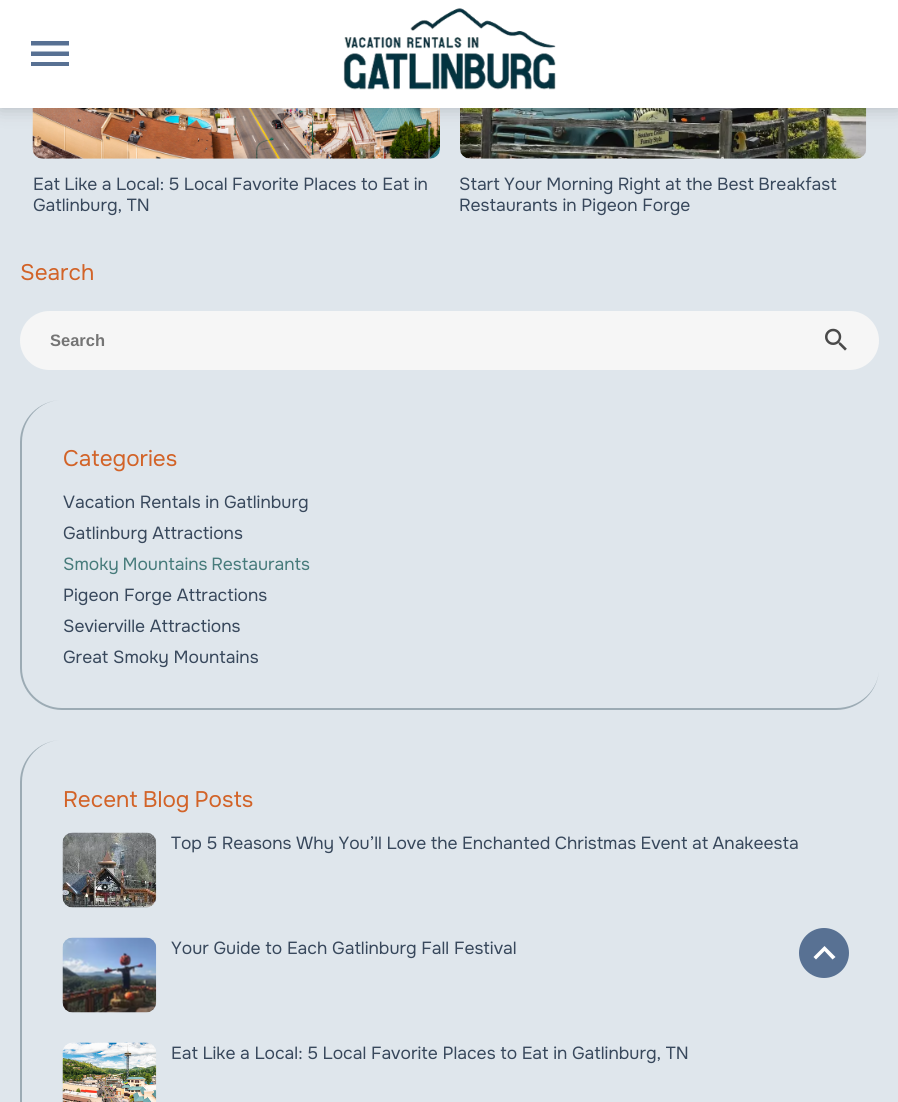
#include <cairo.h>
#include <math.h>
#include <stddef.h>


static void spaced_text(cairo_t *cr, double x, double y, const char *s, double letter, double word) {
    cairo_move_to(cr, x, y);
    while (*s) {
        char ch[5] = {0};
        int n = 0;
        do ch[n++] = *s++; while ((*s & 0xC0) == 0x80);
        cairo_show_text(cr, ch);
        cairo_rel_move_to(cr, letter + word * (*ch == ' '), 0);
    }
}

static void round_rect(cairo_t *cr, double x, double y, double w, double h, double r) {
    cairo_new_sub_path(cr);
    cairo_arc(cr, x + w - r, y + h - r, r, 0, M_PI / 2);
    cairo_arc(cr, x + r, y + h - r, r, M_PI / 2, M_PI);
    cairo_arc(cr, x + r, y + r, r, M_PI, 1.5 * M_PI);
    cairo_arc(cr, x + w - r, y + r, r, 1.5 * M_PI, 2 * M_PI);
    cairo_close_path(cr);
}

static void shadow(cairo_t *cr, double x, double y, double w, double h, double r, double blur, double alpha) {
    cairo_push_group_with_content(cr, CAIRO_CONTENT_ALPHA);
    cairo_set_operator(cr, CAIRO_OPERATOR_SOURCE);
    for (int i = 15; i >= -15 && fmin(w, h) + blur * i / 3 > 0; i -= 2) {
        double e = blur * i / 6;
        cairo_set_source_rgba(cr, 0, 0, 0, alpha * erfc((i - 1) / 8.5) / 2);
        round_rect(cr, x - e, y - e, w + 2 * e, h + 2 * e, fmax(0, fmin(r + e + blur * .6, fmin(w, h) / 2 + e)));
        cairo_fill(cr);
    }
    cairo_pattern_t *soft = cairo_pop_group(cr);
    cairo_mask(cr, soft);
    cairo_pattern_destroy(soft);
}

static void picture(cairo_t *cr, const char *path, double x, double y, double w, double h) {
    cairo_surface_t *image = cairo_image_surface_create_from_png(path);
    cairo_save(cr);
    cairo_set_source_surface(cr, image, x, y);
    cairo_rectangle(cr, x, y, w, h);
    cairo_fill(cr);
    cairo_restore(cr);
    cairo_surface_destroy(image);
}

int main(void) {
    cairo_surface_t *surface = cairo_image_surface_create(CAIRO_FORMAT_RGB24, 898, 1102);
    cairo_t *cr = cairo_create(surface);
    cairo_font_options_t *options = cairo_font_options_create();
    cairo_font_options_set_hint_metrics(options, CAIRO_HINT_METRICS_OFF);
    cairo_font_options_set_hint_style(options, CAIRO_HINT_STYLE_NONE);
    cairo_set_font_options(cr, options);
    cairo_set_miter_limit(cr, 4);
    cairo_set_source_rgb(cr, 0.875, 0.902, 0.925);
    cairo_paint(cr);
    picture(cr, "img2.png", 32, 108, 408, 51);
    picture(cr, "img3.png", 460, 108, 407, 51);
    cairo_set_source_rgb(cr, 0, 0, 0);
    shadow(cr, 0, -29, 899, 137, 0, 9.5, 0.2);
    cairo_set_source_rgb(cr, 1, 1, 1);
    cairo_rectangle(cr, 0, 0, 898, 108);
    cairo_fill(cr);
    cairo_set_source_rgb(cr, 0.345, 0.443, 0.576);
    cairo_new_path(cr);
    cairo_move_to(cr, 31, 41);
    cairo_line_to(cr, 69, 41);
    cairo_line_to(cr, 69, 45.5);
    cairo_line_to(cr, 31, 45.5);
    cairo_close_path(cr);
    cairo_move_to(cr, 31, 56);
    cairo_line_to(cr, 31, 51.5);
    cairo_line_to(cr, 69, 51.5);
    cairo_line_to(cr, 69, 56);
    cairo_close_path(cr);
    cairo_move_to(cr, 31, 66);
    cairo_line_to(cr, 31, 62);
    cairo_line_to(cr, 69, 62);
    cairo_line_to(cr, 69, 66);
    cairo_close_path(cr);
    cairo_fill(cr);
    picture(cr, "img1.png", 343, 8, 213, 82);
    cairo_select_font_face(cr, "Onest", CAIRO_FONT_SLANT_NORMAL, CAIRO_FONT_WEIGHT_NORMAL);
    cairo_set_font_size(cr, 17.5);
    cairo_set_source_rgb(cr, 0.22, 0.282, 0.361);
    spaced_text(cr, 33, 190, "Eat Like a Local: 5 Local Favorite Places to Eat in", 0, -0.25);
    cairo_move_to(cr, 33, 211);
    cairo_show_text(cr, "Gatlinburg, TN");
    spaced_text(cr, 459, 190, "Start Your Morning Right at the Best Breakfast", 0, -0.25);
    cairo_move_to(cr, 459, 211);
    cairo_show_text(cr, "Restaurants in Pigeon Forge");
    cairo_set_font_size(cr, 22.5);
    cairo_set_source_rgb(cr, 0.824, 0.388, 0.157);
    cairo_move_to(cr, 20, 280);
    cairo_show_text(cr, "Search");
    cairo_set_source_rgb(cr, 0.961, 0.961, 0.961);
    round_rect(cr, 20, 311, 859, 59, 29.5);
    cairo_fill(cr);
    cairo_select_font_face(cr, "Liberation Sans", CAIRO_FONT_SLANT_NORMAL, CAIRO_FONT_WEIGHT_BOLD);
    cairo_set_font_size(cr, 16.5);
    cairo_set_source_rgb(cr, 0.459, 0.459, 0.459);
    cairo_move_to(cr, 50, 346);
    cairo_show_text(cr, "Search");
    picture(cr, "img4.png", 825, 328, 22, 23);
    cairo_set_source_rgb(cr, 0.612, 0.671, 0.706);
    cairo_set_fill_rule(cr, CAIRO_FILL_RULE_EVEN_ODD);
    cairo_new_path(cr);
    cairo_move_to(cr, 62, 400);
    cairo_line_to(cr, 836, 400);
    cairo_curve_to(cr, 860, 400, 879, 419, 879, 442);
    cairo_line_to(cr, 879, 668);
    cairo_curve_to(cr, 879, 691, 860, 710, 836, 710);
    cairo_line_to(cr, 62, 710);
    cairo_curve_to(cr, 39, 710, 20, 691, 20, 668);
    cairo_line_to(cr, 20, 442);
    cairo_curve_to(cr, 20, 419, 39, 400, 62, 400);
    cairo_close_path(cr);
    cairo_move_to(cr, 62, 400);
    cairo_line_to(cr, 836, 400);
    cairo_curve_to(cr, 860, 400, 879, 419, 879, 442);
    cairo_line_to(cr, 879, 668);
    cairo_curve_to(cr, 879, 690, 860, 708, 836, 708);
    cairo_line_to(cr, 62, 708);
    cairo_curve_to(cr, 40, 708, 22, 690, 22, 668);
    cairo_line_to(cr, 22, 442);
    cairo_curve_to(cr, 22, 419, 40, 400, 62, 400);
    cairo_close_path(cr);
    cairo_fill(cr);
    cairo_select_font_face(cr, "Onest", CAIRO_FONT_SLANT_NORMAL, CAIRO_FONT_WEIGHT_NORMAL);
    cairo_set_font_size(cr, 22.5);
    cairo_set_source_rgb(cr, 0.824, 0.388, 0.157);
    cairo_move_to(cr, 63, 466);
    cairo_show_text(cr, "Categories");
    cairo_set_font_size(cr, 17.5);
    cairo_set_source_rgb(cr, 0.22, 0.282, 0.361);
    spaced_text(cr, 63, 508, "Vacation Rentals in Gatlinburg", 0, -0.1);
    cairo_move_to(cr, 63, 539);
    cairo_show_text(cr, "Gatlinburg Attractions");
    cairo_set_source_rgb(cr, 0.278, 0.482, 0.482);
    spaced_text(cr, 63, 570, "Smoky Mountains Restaurants", 0, -1);
    cairo_set_source_rgb(cr, 0.22, 0.282, 0.361);
    cairo_move_to(cr, 63, 601);
    cairo_show_text(cr, "Pigeon Forge Attractions");
    cairo_move_to(cr, 63, 632);
    cairo_show_text(cr, "Sevierville Attractions");
    cairo_move_to(cr, 63, 663);
    cairo_show_text(cr, "Great Smoky Mountains");
    cairo_set_source_rgb(cr, 0.612, 0.671, 0.706);
    cairo_new_path(cr);
    cairo_move_to(cr, 62, 740);
    cairo_line_to(cr, 836, 740);
    cairo_curve_to(cr, 860, 740, 879, 759, 879, 782);
    cairo_line_to(cr, 879, 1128);
    cairo_curve_to(cr, 879, 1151, 860, 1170, 836, 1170);
    cairo_line_to(cr, 62, 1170);
    cairo_curve_to(cr, 39, 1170, 20, 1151, 20, 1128);
    cairo_line_to(cr, 20, 782);
    cairo_curve_to(cr, 20, 759, 39, 740, 62, 740);
    cairo_close_path(cr);
    cairo_move_to(cr, 62, 740);
    cairo_line_to(cr, 836, 740);
    cairo_curve_to(cr, 860, 740, 879, 759, 879, 782);
    cairo_line_to(cr, 879, 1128);
    cairo_curve_to(cr, 879, 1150, 860, 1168, 836, 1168);
    cairo_line_to(cr, 62, 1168);
    cairo_curve_to(cr, 40, 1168, 22, 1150, 22, 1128);
    cairo_line_to(cr, 22, 782);
    cairo_curve_to(cr, 22, 759, 40, 740, 62, 740);
    cairo_close_path(cr);
    cairo_fill(cr);
    cairo_set_font_size(cr, 22.5);
    cairo_set_source_rgb(cr, 0.824, 0.388, 0.157);
    spaced_text(cr, 63, 807, "Recent Blog Posts", 0, -1);
    picture(cr, "img5.png", 62, 832, 95, 76);
    cairo_set_font_size(cr, 17.5);
    cairo_set_source_rgb(cr, 0.22, 0.282, 0.361);
    spaced_text(cr, 171, 849, "Top 5 Reasons Why You’ll Love the Enchanted Christmas Event at Anakeesta", 0, -0.25);
    picture(cr, "img6.png", 62, 937, 95, 76);
    cairo_move_to(cr, 171, 954);
    cairo_show_text(cr, "Your Guide to Each Gatlinburg Fall Festival");
    picture(cr, "img7.png", 62, 1042, 95, 60);
    spaced_text(cr, 171, 1059, "Eat Like a Local: 5 Local Favorite Places to Eat in Gatlinburg, TN", 0, -0.1);
    cairo_set_source_rgb(cr, 0.345, 0.443, 0.576);
    cairo_new_path(cr);
    cairo_arc(cr, 824, 953, 25, 0, 2 * M_PI);
    cairo_fill(cr);
    cairo_set_source_rgb(cr, 1, 1, 1);
    cairo_set_fill_rule(cr, CAIRO_FILL_RULE_WINDING);
    cairo_new_path(cr);
    cairo_move_to(cr, 824.5, 946);
    cairo_line_to(cr, 835.5, 957);
    cairo_line_to(cr, 832.5, 959.5);
    cairo_line_to(cr, 824.5, 951);
    cairo_line_to(cr, 816, 959.5);
    cairo_line_to(cr, 813.5, 957);
    cairo_close_path(cr);
    cairo_fill(cr);
    cairo_surface_write_to_png(surface, "page.png");
    cairo_font_options_destroy(options);
    cairo_destroy(cr);
    cairo_surface_destroy(surface);
    return 0;
}
